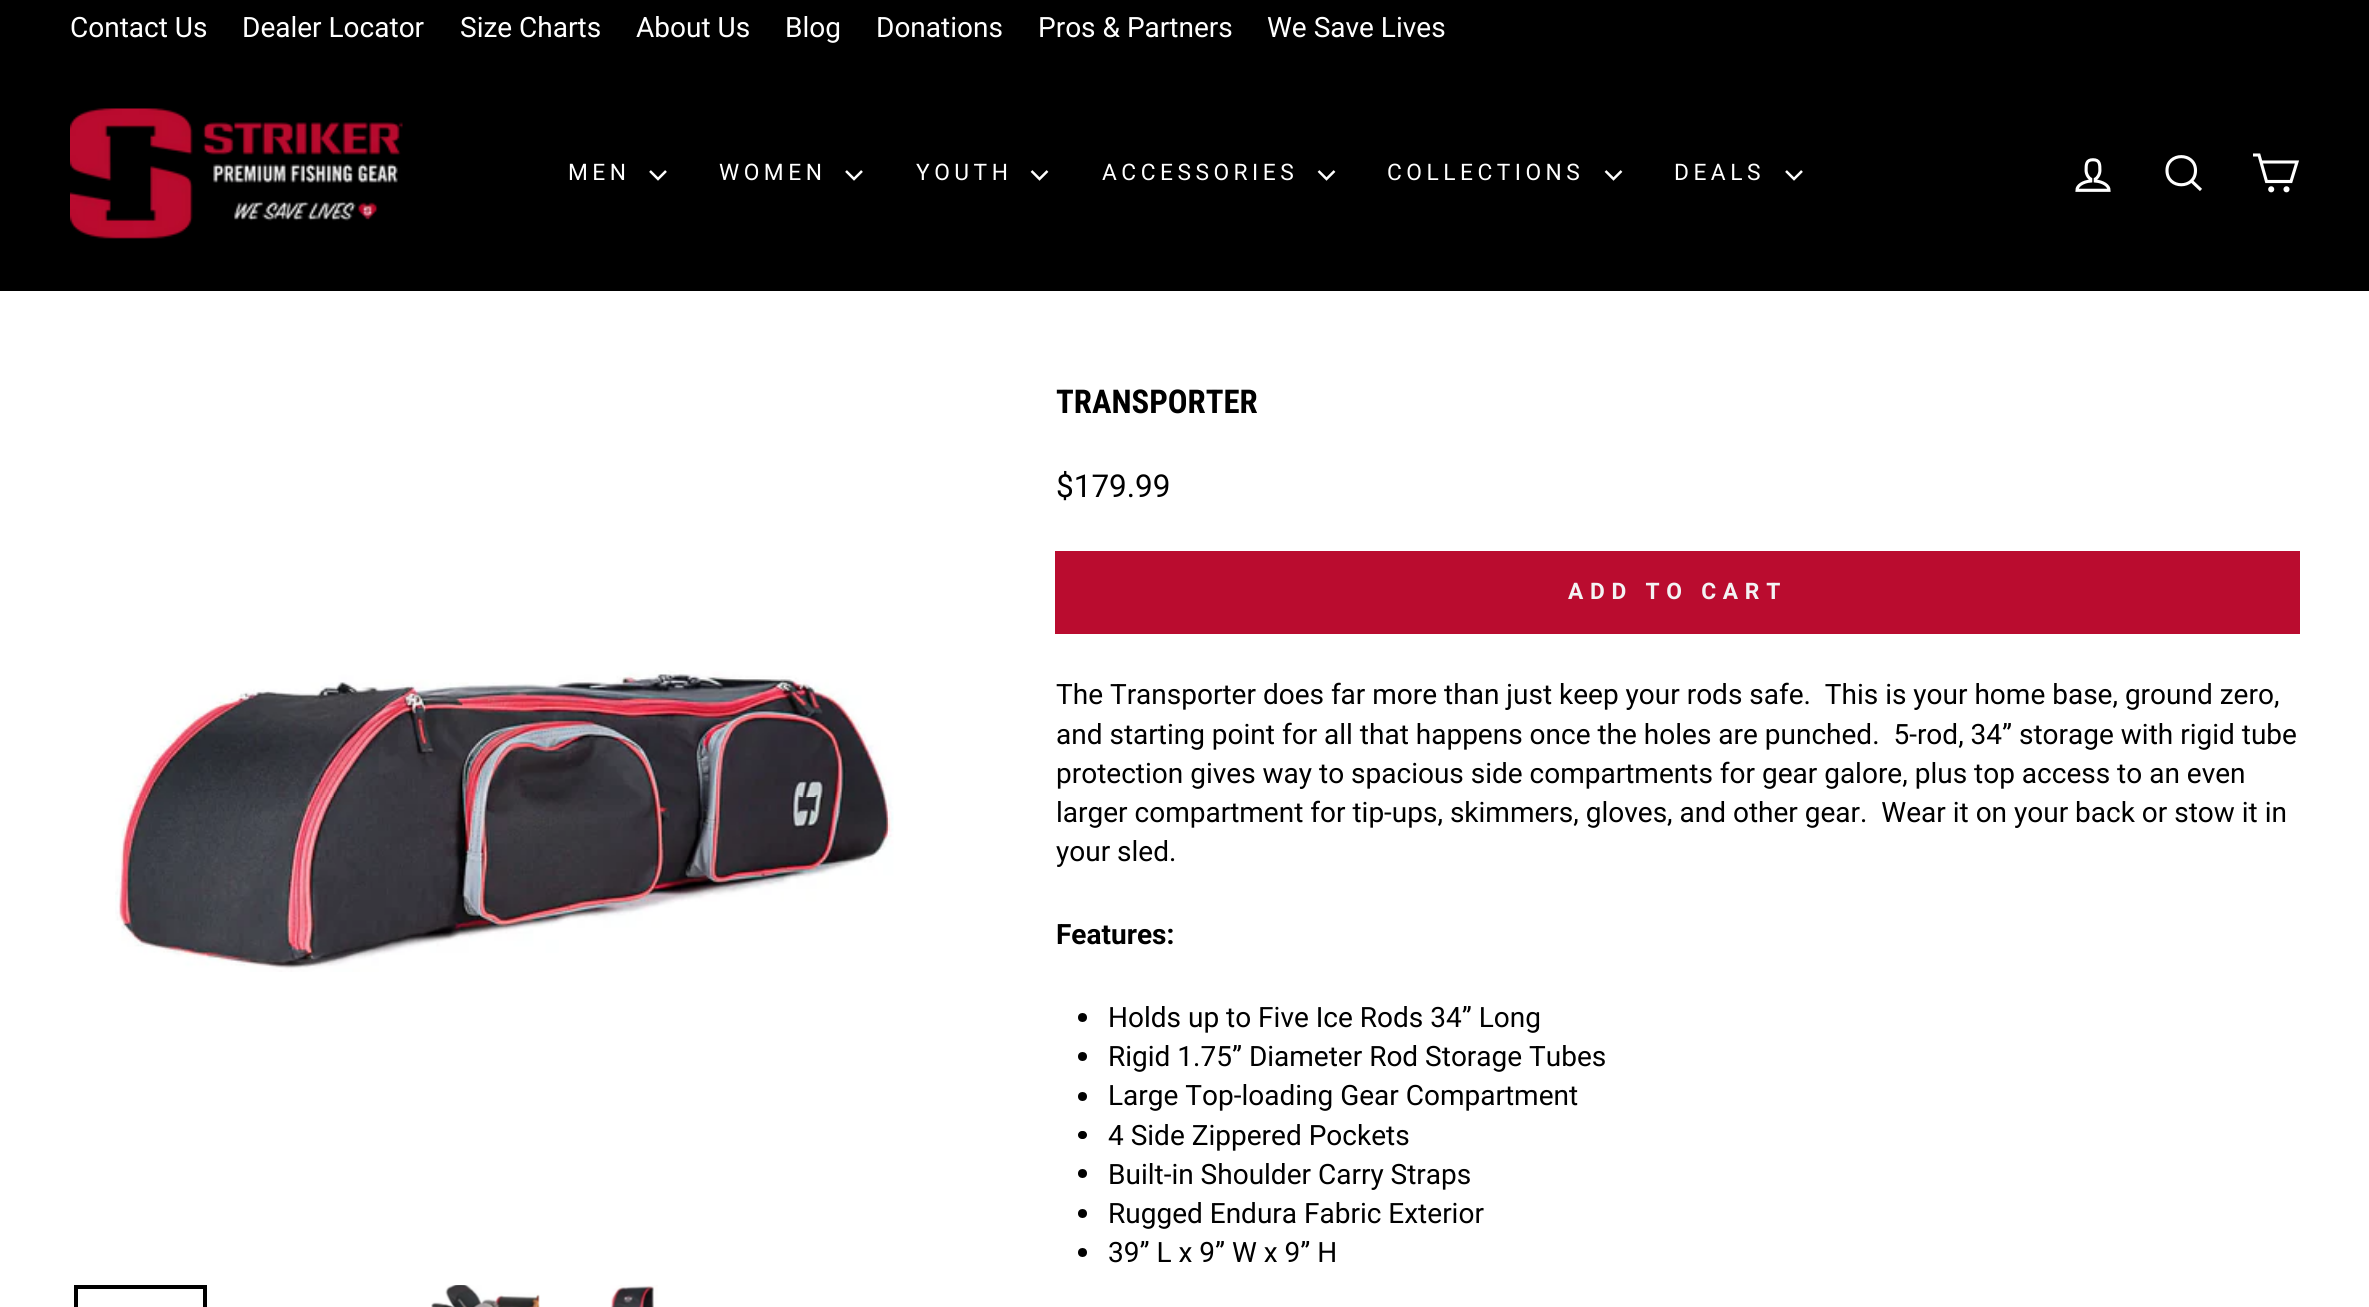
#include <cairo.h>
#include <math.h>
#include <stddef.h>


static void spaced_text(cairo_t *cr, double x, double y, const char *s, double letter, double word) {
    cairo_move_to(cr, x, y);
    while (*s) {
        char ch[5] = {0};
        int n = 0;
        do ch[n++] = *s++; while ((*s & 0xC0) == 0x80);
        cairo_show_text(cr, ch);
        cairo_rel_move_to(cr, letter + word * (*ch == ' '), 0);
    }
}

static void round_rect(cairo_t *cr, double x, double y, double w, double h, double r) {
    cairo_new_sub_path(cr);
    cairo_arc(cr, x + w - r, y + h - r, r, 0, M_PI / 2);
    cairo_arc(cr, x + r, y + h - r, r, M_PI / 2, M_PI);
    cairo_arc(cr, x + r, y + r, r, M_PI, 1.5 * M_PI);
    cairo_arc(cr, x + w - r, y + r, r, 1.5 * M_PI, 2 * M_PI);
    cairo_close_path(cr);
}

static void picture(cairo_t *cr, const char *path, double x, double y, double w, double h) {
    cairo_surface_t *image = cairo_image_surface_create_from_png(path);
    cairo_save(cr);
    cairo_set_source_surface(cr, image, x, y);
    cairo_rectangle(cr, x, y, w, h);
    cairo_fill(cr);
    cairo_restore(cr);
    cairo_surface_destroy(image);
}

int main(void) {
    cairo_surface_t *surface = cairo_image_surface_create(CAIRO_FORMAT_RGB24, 2369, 1307);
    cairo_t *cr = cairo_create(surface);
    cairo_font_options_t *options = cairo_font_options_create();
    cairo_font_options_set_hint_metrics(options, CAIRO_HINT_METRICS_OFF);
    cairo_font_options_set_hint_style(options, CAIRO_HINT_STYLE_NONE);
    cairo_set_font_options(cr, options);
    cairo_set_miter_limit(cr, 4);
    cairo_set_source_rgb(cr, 1, 1, 1);
    cairo_paint(cr);
    cairo_set_source_rgb(cr, 0, 0, 0);
    cairo_rectangle(cr, 0, 0, 2369, 291);
    cairo_fill(cr);
    cairo_select_font_face(cr, "Roboto", CAIRO_FONT_SLANT_NORMAL, CAIRO_FONT_WEIGHT_NORMAL);
    cairo_set_font_size(cr, 28);
    cairo_set_source_rgb(cr, 1, 1, 1);
    cairo_move_to(cr, 70, 37);
    cairo_show_text(cr, "Contact Us");
    cairo_move_to(cr, 242, 37);
    cairo_show_text(cr, "Dealer Locator");
    cairo_move_to(cr, 460, 37);
    cairo_show_text(cr, "Size Charts");
    cairo_move_to(cr, 636, 37);
    cairo_show_text(cr, "About Us");
    cairo_move_to(cr, 785, 37);
    cairo_show_text(cr, "Blog");
    cairo_move_to(cr, 876, 37);
    cairo_show_text(cr, "Donations");
    cairo_move_to(cr, 1038, 37);
    cairo_show_text(cr, "Pros & Partners");
    cairo_move_to(cr, 1267, 37);
    cairo_show_text(cr, "We Save Lives");
    picture(cr, "img1.png", 70, 108, 333, 131);
    cairo_set_font_size(cr, 22.75);
    spaced_text(cr, 568, 180, "MEN", 4.5, 0);
    cairo_new_path(cr);
    cairo_move_to(cr, 650, 171);
    cairo_line_to(cr, 658, 179);
    cairo_line_to(cr, 666, 171);
    cairo_set_line_width(cr, 2.5);
    cairo_stroke(cr);
    spaced_text(cr, 719, 180, "WOMEN", 4.5, 0);
    cairo_new_path(cr);
    cairo_move_to(cr, 846, 171);
    cairo_line_to(cr, 854, 179);
    cairo_line_to(cr, 862, 171);
    cairo_stroke(cr);
    spaced_text(cr, 916, 180, "YOUTH", 4.5, 0);
    cairo_new_path(cr);
    cairo_move_to(cr, 1031.5, 171);
    cairo_line_to(cr, 1039.5, 179);
    cairo_line_to(cr, 1047.5, 171);
    cairo_stroke(cr);
    spaced_text(cr, 1102, 180, "ACCESSORIES", 4.5, 0);
    cairo_new_path(cr);
    cairo_move_to(cr, 1318.5, 171);
    cairo_line_to(cr, 1326.5, 179);
    cairo_line_to(cr, 1334.5, 171);
    cairo_stroke(cr);
    spaced_text(cr, 1387, 180, "COLLECTIONS", 4.5, 0);
    cairo_new_path(cr);
    cairo_move_to(cr, 1605.5, 171);
    cairo_line_to(cr, 1613.5, 179);
    cairo_line_to(cr, 1621.5, 171);
    cairo_stroke(cr);
    spaced_text(cr, 1674, 180, "DEALS", 4.5, 0);
    cairo_new_path(cr);
    cairo_move_to(cr, 1786, 171);
    cairo_line_to(cr, 1794, 179);
    cairo_line_to(cr, 1802, 171);
    cairo_stroke(cr);
    picture(cr, "img2.png", 2075, 158, 36, 34);
    cairo_new_path(cr);
    cairo_move_to(cr, 2195.5, 170.5);
    cairo_curve_to(cr, 2195.5, 189.5, 2167, 189.5, 2167, 170.5);
    cairo_curve_to(cr, 2167, 152, 2195.5, 152, 2195.5, 170.5);
    cairo_close_path(cr);
    cairo_move_to(cr, 2201, 190);
    cairo_line_to(cr, 2191.5, 181);
    cairo_set_line_width(cr, 3.1);
    cairo_stroke(cr);
    cairo_new_path(cr);
    cairo_move_to(cr, 2261, 162);
    cairo_line_to(cr, 2297, 162);
    cairo_line_to(cr, 2291, 181.5);
    cairo_line_to(cr, 2266.5, 181.5);
    cairo_line_to(cr, 2259, 155);
    cairo_line_to(cr, 2253, 155);
    cairo_stroke(cr);
    cairo_arc(cr, 2271.2, 189.3, 1.5, 0, 2 * M_PI);
    cairo_stroke(cr);
    cairo_arc(cr, 2286.5, 189.3, 1.5, 0, 2 * M_PI);
    cairo_stroke(cr);
    picture(cr, "img3.png", 115, 670, 779, 302);
    cairo_rectangle(cr, 76, 1287, 129, 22);
    cairo_set_source_rgb(cr, 0, 0, 0);
    cairo_set_line_width(cr, 4);
    cairo_stroke(cr);
    picture(cr, "img4.png", 431, 1285, 109, 22);
    picture(cr, "img5.png", 610, 1285, 48, 22);
    cairo_select_font_face(cr, "Roboto Condensed", CAIRO_FONT_SLANT_NORMAL, CAIRO_FONT_WEIGHT_BOLD);
    cairo_set_font_size(cr, 32.75);
    cairo_move_to(cr, 1056, 413);
    cairo_show_text(cr, "TRANSPORTER");
    cairo_select_font_face(cr, "Roboto", CAIRO_FONT_SLANT_NORMAL, CAIRO_FONT_WEIGHT_NORMAL);
    cairo_set_font_size(cr, 31.5);
    cairo_move_to(cr, 1056, 497);
    cairo_show_text(cr, "$179.99");
    cairo_set_source_rgb(cr, 0.729, 0.047, 0.184);
    cairo_rectangle(cr, 1055, 551, 1245, 83);
    cairo_fill(cr);
    cairo_select_font_face(cr, "Roboto", CAIRO_FONT_SLANT_NORMAL, CAIRO_FONT_WEIGHT_BOLD);
    cairo_set_font_size(cr, 22.75);
    cairo_set_source_rgb(cr, 0.953, 0.953, 0.957);
    spaced_text(cr, 1568, 599, "ADD TO CART", 6.75, 0);
    cairo_select_font_face(cr, "Roboto", CAIRO_FONT_SLANT_NORMAL, CAIRO_FONT_WEIGHT_NORMAL);
    cairo_set_font_size(cr, 28);
    cairo_set_source_rgb(cr, 0, 0, 0);
    cairo_move_to(cr, 1056, 704);
    cairo_show_text(cr, "The Transporter does far more than just keep your rods safe.  This is your home base, ground zero,");
    cairo_move_to(cr, 1056, 744);
    cairo_show_text(cr, "and starting point for all that happens once the holes are punched.  5-rod, 34” storage with rigid tube");
    cairo_move_to(cr, 1056, 783);
    cairo_show_text(cr, "protection gives way to spacious side compartments for gear galore, plus top access to an even");
    cairo_move_to(cr, 1056, 822);
    cairo_show_text(cr, "larger compartment for tip-ups, skimmers, gloves, and other gear.  Wear it on your back or stow it in");
    cairo_move_to(cr, 1056, 861);
    cairo_show_text(cr, "your sled.");
    cairo_select_font_face(cr, "Roboto", CAIRO_FONT_SLANT_NORMAL, CAIRO_FONT_WEIGHT_BOLD);
    cairo_move_to(cr, 1056, 944);
    cairo_show_text(cr, "Features:");
    cairo_new_path(cr);
    cairo_arc(cr, 1082.5, 1017.5, 4.5, 0, 2 * M_PI);
    cairo_fill(cr);
    cairo_select_font_face(cr, "Roboto", CAIRO_FONT_SLANT_NORMAL, CAIRO_FONT_WEIGHT_NORMAL);
    cairo_move_to(cr, 1108, 1027);
    cairo_show_text(cr, "Holds up to Five Ice Rods 34” Long");
    cairo_new_path(cr);
    cairo_arc(cr, 1082.5, 1056.5, 4.5, 0, 2 * M_PI);
    cairo_fill(cr);
    cairo_move_to(cr, 1108, 1066);
    cairo_show_text(cr, "Rigid 1.75” Diameter Rod Storage Tubes");
    cairo_new_path(cr);
    cairo_arc(cr, 1082.5, 1096.5, 4.5, 0, 2 * M_PI);
    cairo_fill(cr);
    cairo_move_to(cr, 1108, 1105);
    cairo_show_text(cr, "Large Top-loading Gear Compartment");
    round_rect(cr, 1078, 1131, 9, 8, 4);
    cairo_fill(cr);
    cairo_move_to(cr, 1108, 1145);
    cairo_show_text(cr, "4 Side Zippered Pockets");
    cairo_new_path(cr);
    cairo_arc(cr, 1082.5, 1173.5, 4.5, 0, 2 * M_PI);
    cairo_fill(cr);
    cairo_move_to(cr, 1108, 1184);
    cairo_show_text(cr, "Built-in Shoulder Carry Straps");
    cairo_new_path(cr);
    cairo_arc(cr, 1082.5, 1213.5, 4.5, 0, 2 * M_PI);
    cairo_fill(cr);
    cairo_move_to(cr, 1108, 1223);
    cairo_show_text(cr, "Rugged Endura Fabric Exterior");
    cairo_new_path(cr);
    cairo_arc(cr, 1082.5, 1252.5, 4.5, 0, 2 * M_PI);
    cairo_fill(cr);
    cairo_move_to(cr, 1108, 1262);
    cairo_show_text(cr, "39” L x 9” W x 9” H");
    cairo_surface_write_to_png(surface, "page.png");
    cairo_font_options_destroy(options);
    cairo_destroy(cr);
    cairo_surface_destroy(surface);
    return 0;
}
